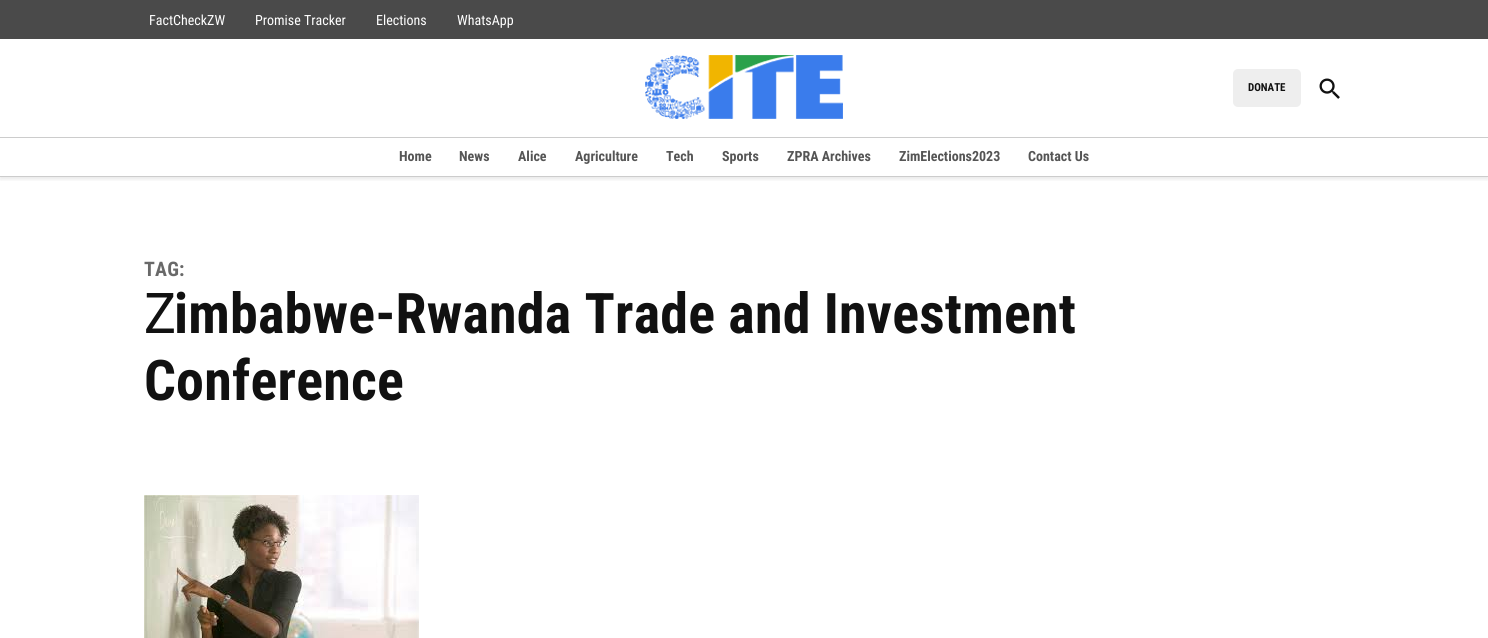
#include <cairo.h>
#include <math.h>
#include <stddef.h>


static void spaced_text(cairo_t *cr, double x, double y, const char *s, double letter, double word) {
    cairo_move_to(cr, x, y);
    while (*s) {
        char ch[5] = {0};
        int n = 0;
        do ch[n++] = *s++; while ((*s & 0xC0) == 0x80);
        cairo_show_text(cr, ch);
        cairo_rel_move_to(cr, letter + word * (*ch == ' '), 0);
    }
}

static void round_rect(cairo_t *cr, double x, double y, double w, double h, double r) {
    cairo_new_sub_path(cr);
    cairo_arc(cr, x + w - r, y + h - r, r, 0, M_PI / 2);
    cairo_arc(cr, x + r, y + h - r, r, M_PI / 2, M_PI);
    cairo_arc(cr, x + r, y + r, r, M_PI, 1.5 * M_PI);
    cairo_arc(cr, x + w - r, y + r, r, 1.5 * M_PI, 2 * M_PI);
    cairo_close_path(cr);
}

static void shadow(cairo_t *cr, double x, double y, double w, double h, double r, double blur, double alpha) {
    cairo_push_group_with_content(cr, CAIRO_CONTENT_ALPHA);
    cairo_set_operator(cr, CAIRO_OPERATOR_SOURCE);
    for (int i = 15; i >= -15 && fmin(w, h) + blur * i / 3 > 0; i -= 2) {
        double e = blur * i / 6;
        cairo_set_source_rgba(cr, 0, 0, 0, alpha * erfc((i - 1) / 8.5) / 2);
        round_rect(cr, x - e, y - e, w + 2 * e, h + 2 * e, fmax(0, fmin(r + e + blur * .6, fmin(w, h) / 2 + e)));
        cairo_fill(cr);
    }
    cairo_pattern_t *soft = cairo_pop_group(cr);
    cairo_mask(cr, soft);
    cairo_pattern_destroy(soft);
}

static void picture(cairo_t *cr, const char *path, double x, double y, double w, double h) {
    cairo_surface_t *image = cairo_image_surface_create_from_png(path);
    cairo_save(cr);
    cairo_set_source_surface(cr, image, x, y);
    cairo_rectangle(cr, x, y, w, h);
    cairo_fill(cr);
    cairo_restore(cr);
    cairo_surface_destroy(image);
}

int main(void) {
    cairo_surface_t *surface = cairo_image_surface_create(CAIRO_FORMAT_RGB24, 1488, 638);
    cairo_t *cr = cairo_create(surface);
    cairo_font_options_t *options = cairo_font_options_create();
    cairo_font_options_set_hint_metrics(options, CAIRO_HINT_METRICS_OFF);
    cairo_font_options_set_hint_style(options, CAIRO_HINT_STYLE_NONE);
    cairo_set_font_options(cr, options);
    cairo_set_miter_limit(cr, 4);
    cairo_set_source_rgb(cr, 1, 1, 1);
    cairo_paint(cr);
    cairo_save(cr);
    cairo_rectangle(cr, 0, 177, 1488, 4);
    cairo_clip(cr);
    cairo_set_source_rgb(cr, 0, 0, 0);
    shadow(cr, 0, 2, 1488, 177, 0, 2.5, 0.1);
    cairo_restore(cr);
    cairo_set_source_rgb(cr, 0.29, 0.29, 0.29);
    cairo_rectangle(cr, 0, 0, 1488, 39);
    cairo_fill(cr);
    cairo_select_font_face(cr, "Roboto Condensed", CAIRO_FONT_SLANT_NORMAL, CAIRO_FONT_WEIGHT_NORMAL);
    cairo_set_font_size(cr, 14);
    cairo_set_source_rgb(cr, 1, 1, 1);
    cairo_move_to(cr, 149, 25);
    cairo_show_text(cr, "FactCheckZW");
    cairo_move_to(cr, 255, 25);
    cairo_show_text(cr, "Promise Tracker");
    cairo_move_to(cr, 376, 25);
    cairo_show_text(cr, "Elections");
    cairo_move_to(cr, 457, 25);
    cairo_show_text(cr, "WhatsApp");
    picture(cr, "img1.png", 645, 55, 198, 64);
    cairo_set_source_rgb(cr, 0.933, 0.933, 0.933);
    round_rect(cr, 1233, 69, 68, 38, 5);
    cairo_fill(cr);
    cairo_select_font_face(cr, "Roboto Condensed", CAIRO_FONT_SLANT_NORMAL, CAIRO_FONT_WEIGHT_BOLD);
    cairo_set_font_size(cr, 11);
    cairo_set_source_rgb(cr, 0.067, 0.067, 0.067);
    cairo_move_to(cr, 1248, 91);
    cairo_show_text(cr, "DONATE");
    picture(cr, "img2.png", 1319, 78, 21, 21);
    cairo_set_source_rgb(cr, 0.8, 0.8, 0.8);
    cairo_rectangle(cr, 0, 137, 1488, 1);
    cairo_fill(cr);
    cairo_rectangle(cr, 0, 176, 1488, 1);
    cairo_fill(cr);
    cairo_set_font_size(cr, 14);
    cairo_set_source_rgb(cr, 0.333, 0.333, 0.333);
    cairo_move_to(cr, 399, 161);
    cairo_show_text(cr, "Home");
    cairo_move_to(cr, 459, 161);
    cairo_show_text(cr, "News");
    cairo_move_to(cr, 518, 161);
    cairo_show_text(cr, "Alice");
    cairo_move_to(cr, 575, 161);
    cairo_show_text(cr, "Agriculture");
    cairo_move_to(cr, 666, 161);
    cairo_show_text(cr, "Tech");
    cairo_move_to(cr, 722, 161);
    cairo_show_text(cr, "Sports");
    cairo_move_to(cr, 787, 161);
    cairo_show_text(cr, "ZPRA Archives");
    cairo_move_to(cr, 899, 161);
    cairo_show_text(cr, "ZimElections2023");
    cairo_move_to(cr, 1028, 161);
    cairo_show_text(cr, "Contact Us");
    cairo_set_font_size(cr, 20);
    cairo_set_source_rgb(cr, 0.412, 0.412, 0.412);
    spaced_text(cr, 144, 276, "TAG:", 0.2, 0);
    cairo_select_font_face(cr, "Noto Sans", CAIRO_FONT_SLANT_NORMAL, CAIRO_FONT_WEIGHT_NORMAL);
    cairo_set_font_size(cr, 56);
    cairo_set_source_rgb(cr, 0.067, 0.067, 0.067);
    spaced_text(cr, 144, 333, "Z", 0.2, 0);
    cairo_select_font_face(cr, "Roboto Condensed", CAIRO_FONT_SLANT_NORMAL, CAIRO_FONT_WEIGHT_BOLD);
    spaced_text(cr, 174, 333, "imbabwe-Rwanda Trade and Investment", 0.2, 0);
    spaced_text(cr, 144, 400, "Conference", 0.2, 0);
    picture(cr, "img3.png", 144, 495, 275, 143);
    cairo_surface_write_to_png(surface, "page.png");
    cairo_font_options_destroy(options);
    cairo_destroy(cr);
    cairo_surface_destroy(surface);
    return 0;
}
